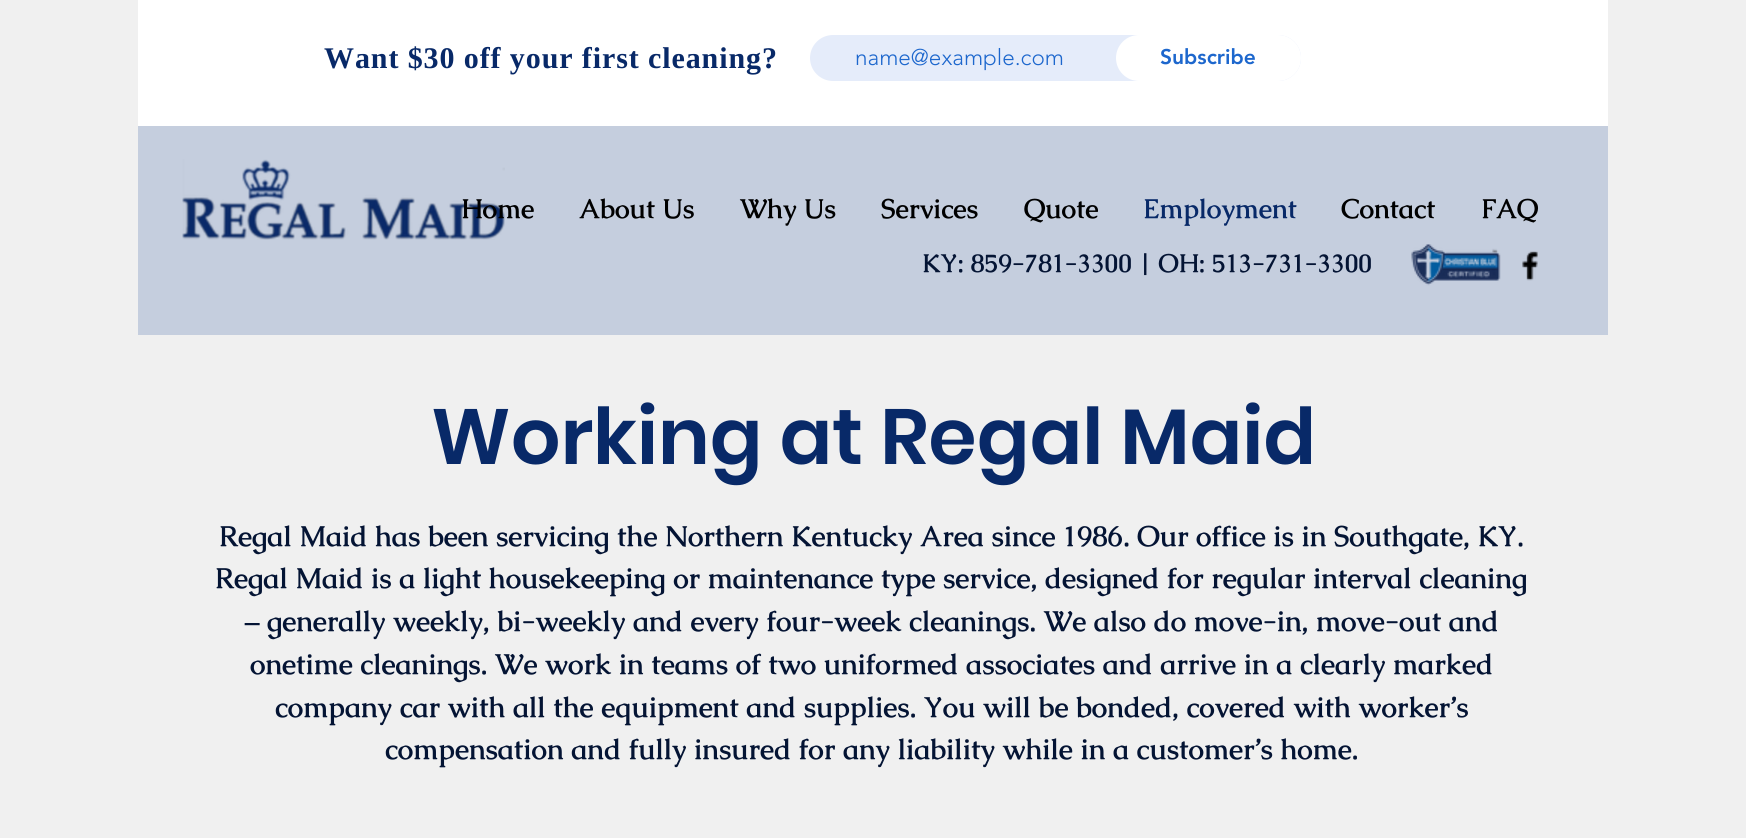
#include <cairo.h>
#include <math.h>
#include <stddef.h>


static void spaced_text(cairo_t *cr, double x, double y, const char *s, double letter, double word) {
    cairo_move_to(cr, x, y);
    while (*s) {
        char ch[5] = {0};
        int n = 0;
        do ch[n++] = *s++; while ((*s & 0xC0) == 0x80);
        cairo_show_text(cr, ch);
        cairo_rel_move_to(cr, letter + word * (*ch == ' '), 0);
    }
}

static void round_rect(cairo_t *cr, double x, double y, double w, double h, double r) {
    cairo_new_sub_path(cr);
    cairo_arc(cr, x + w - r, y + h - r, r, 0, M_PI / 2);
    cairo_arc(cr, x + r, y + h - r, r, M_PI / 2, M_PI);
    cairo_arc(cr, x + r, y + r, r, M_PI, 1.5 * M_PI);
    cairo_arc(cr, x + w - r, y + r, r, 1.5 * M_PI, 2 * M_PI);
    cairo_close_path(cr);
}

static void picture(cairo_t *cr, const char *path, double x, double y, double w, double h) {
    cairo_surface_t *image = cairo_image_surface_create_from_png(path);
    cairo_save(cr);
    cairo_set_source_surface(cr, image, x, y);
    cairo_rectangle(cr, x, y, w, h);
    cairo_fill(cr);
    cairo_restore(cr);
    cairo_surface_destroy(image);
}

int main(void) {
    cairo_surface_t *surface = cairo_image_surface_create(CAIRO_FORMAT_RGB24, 1746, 838);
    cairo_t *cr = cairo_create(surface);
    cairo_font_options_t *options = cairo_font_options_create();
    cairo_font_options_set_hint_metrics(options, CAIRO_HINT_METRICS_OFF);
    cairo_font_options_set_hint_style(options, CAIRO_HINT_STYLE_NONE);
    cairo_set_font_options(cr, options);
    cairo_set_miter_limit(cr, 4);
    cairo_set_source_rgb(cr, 0.941, 0.941, 0.941);
    cairo_paint(cr);
    cairo_set_source_rgb(cr, 1, 1, 1);
    cairo_rectangle(cr, 138, 0, 1470, 126);
    cairo_fill(cr);
    cairo_select_font_face(cr, "Liberation Serif", CAIRO_FONT_SLANT_NORMAL, CAIRO_FONT_WEIGHT_BOLD);
    cairo_set_font_size(cr, 30);
    cairo_set_source_rgb(cr, 0.035, 0.161, 0.408);
    spaced_text(cr, 324, 68, "Want $30 off your first cleaning?", 0.9, 0);
    cairo_set_source_rgb(cr, 0.898, 0.922, 0.98);
    round_rect(cr, 810, 35, 491, 46, 23);
    cairo_fill(cr);
    cairo_select_font_face(cr, "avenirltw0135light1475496 Light", CAIRO_FONT_SLANT_NORMAL, CAIRO_FONT_WEIGHT_NORMAL);
    cairo_set_font_size(cr, 22.5);
    cairo_set_source_rgb(cr, 0.114, 0.404, 0.804);
    cairo_move_to(cr, 855, 65);
    cairo_show_text(cr, "name@example.com");
    cairo_set_source_rgb(cr, 1, 1, 1);
    round_rect(cr, 1116, 35, 185, 46, 23);
    cairo_fill(cr);
    cairo_select_font_face(cr, "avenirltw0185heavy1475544 Black", CAIRO_FONT_SLANT_NORMAL, CAIRO_FONT_WEIGHT_NORMAL);
    cairo_set_font_size(cr, 21);
    cairo_set_source_rgb(cr, 0.114, 0.404, 0.804);
    cairo_move_to(cr, 1160, 64);
    cairo_show_text(cr, "Subscribe");
    cairo_set_source_rgb(cr, 0.773, 0.808, 0.871);
    cairo_rectangle(cr, 138, 126, 1470, 209);
    cairo_fill(cr);
    picture(cr, "img1.png", 182, 159, 323, 81);
    cairo_select_font_face(cr, "Caudex", CAIRO_FONT_SLANT_NORMAL, CAIRO_FONT_WEIGHT_BOLD);
    cairo_set_font_size(cr, 27);
    cairo_set_source_rgb(cr, 0, 0, 0);
    cairo_move_to(cr, 461, 218);
    cairo_show_text(cr, "Home");
    cairo_move_to(cr, 579, 218);
    cairo_show_text(cr, "About Us");
    cairo_move_to(cr, 740, 218);
    cairo_show_text(cr, "Why Us");
    cairo_move_to(cr, 881, 218);
    cairo_show_text(cr, "Services");
    cairo_move_to(cr, 1024, 218);
    cairo_show_text(cr, "Quote");
    cairo_set_source_rgb(cr, 0.035, 0.161, 0.408);
    cairo_move_to(cr, 1143, 218);
    cairo_show_text(cr, "Employment");
    cairo_set_source_rgb(cr, 0, 0, 0);
    cairo_move_to(cr, 1341, 218);
    cairo_show_text(cr, "Contact");
    cairo_move_to(cr, 1481, 218);
    cairo_show_text(cr, "FAQ");
    cairo_set_font_size(cr, 25.5);
    cairo_set_source_rgb(cr, 0.016, 0.082, 0.204);
    cairo_move_to(cr, 922, 272);
    cairo_show_text(cr, "KY: 859-781-3300 | OH: 513-731-3300");
    picture(cr, "img2.png", 1411, 244, 90, 42);
    picture(cr, "img3.png", 1522, 251, 16, 30);
    cairo_select_font_face(cr, "Poppins SemiBold", CAIRO_FONT_SLANT_NORMAL, CAIRO_FONT_WEIGHT_NORMAL);
    cairo_set_font_size(cr, 78);
    cairo_set_source_rgb(cr, 0.035, 0.161, 0.408);
    cairo_move_to(cr, 431, 464);
    cairo_show_text(cr, "Working at Regal Maid");
    cairo_select_font_face(cr, "Caudex", CAIRO_FONT_SLANT_NORMAL, CAIRO_FONT_WEIGHT_BOLD);
    cairo_set_font_size(cr, 28.5);
    cairo_set_source_rgb(cr, 0.016, 0.082, 0.204);
    cairo_move_to(cr, 219, 546);
    cairo_show_text(cr, "Regal Maid has been servicing the Northern Kentucky Area since 1986. Our office is in Southgate, KY.");
    cairo_move_to(cr, 215, 588);
    cairo_show_text(cr, "Regal Maid is a light housekeeping or maintenance type service, designed for regular interval cleaning");
    cairo_move_to(cr, 245, 631);
    cairo_show_text(cr, "– generally weekly, bi-weekly and every four-week cleanings. We also do move-in, move-out and");
    cairo_move_to(cr, 250, 674);
    cairo_show_text(cr, "onetime cleanings. We work in teams of two uniformed associates and arrive in a clearly marked");
    cairo_move_to(cr, 275, 717);
    cairo_show_text(cr, "company car with all the equipment and supplies. You will be bonded, covered with worker’s");
    cairo_move_to(cr, 385, 759);
    cairo_show_text(cr, "compensation and fully insured for any liability while in a customer’s home.");
    cairo_surface_write_to_png(surface, "page.png");
    cairo_font_options_destroy(options);
    cairo_destroy(cr);
    cairo_surface_destroy(surface);
    return 0;
}
